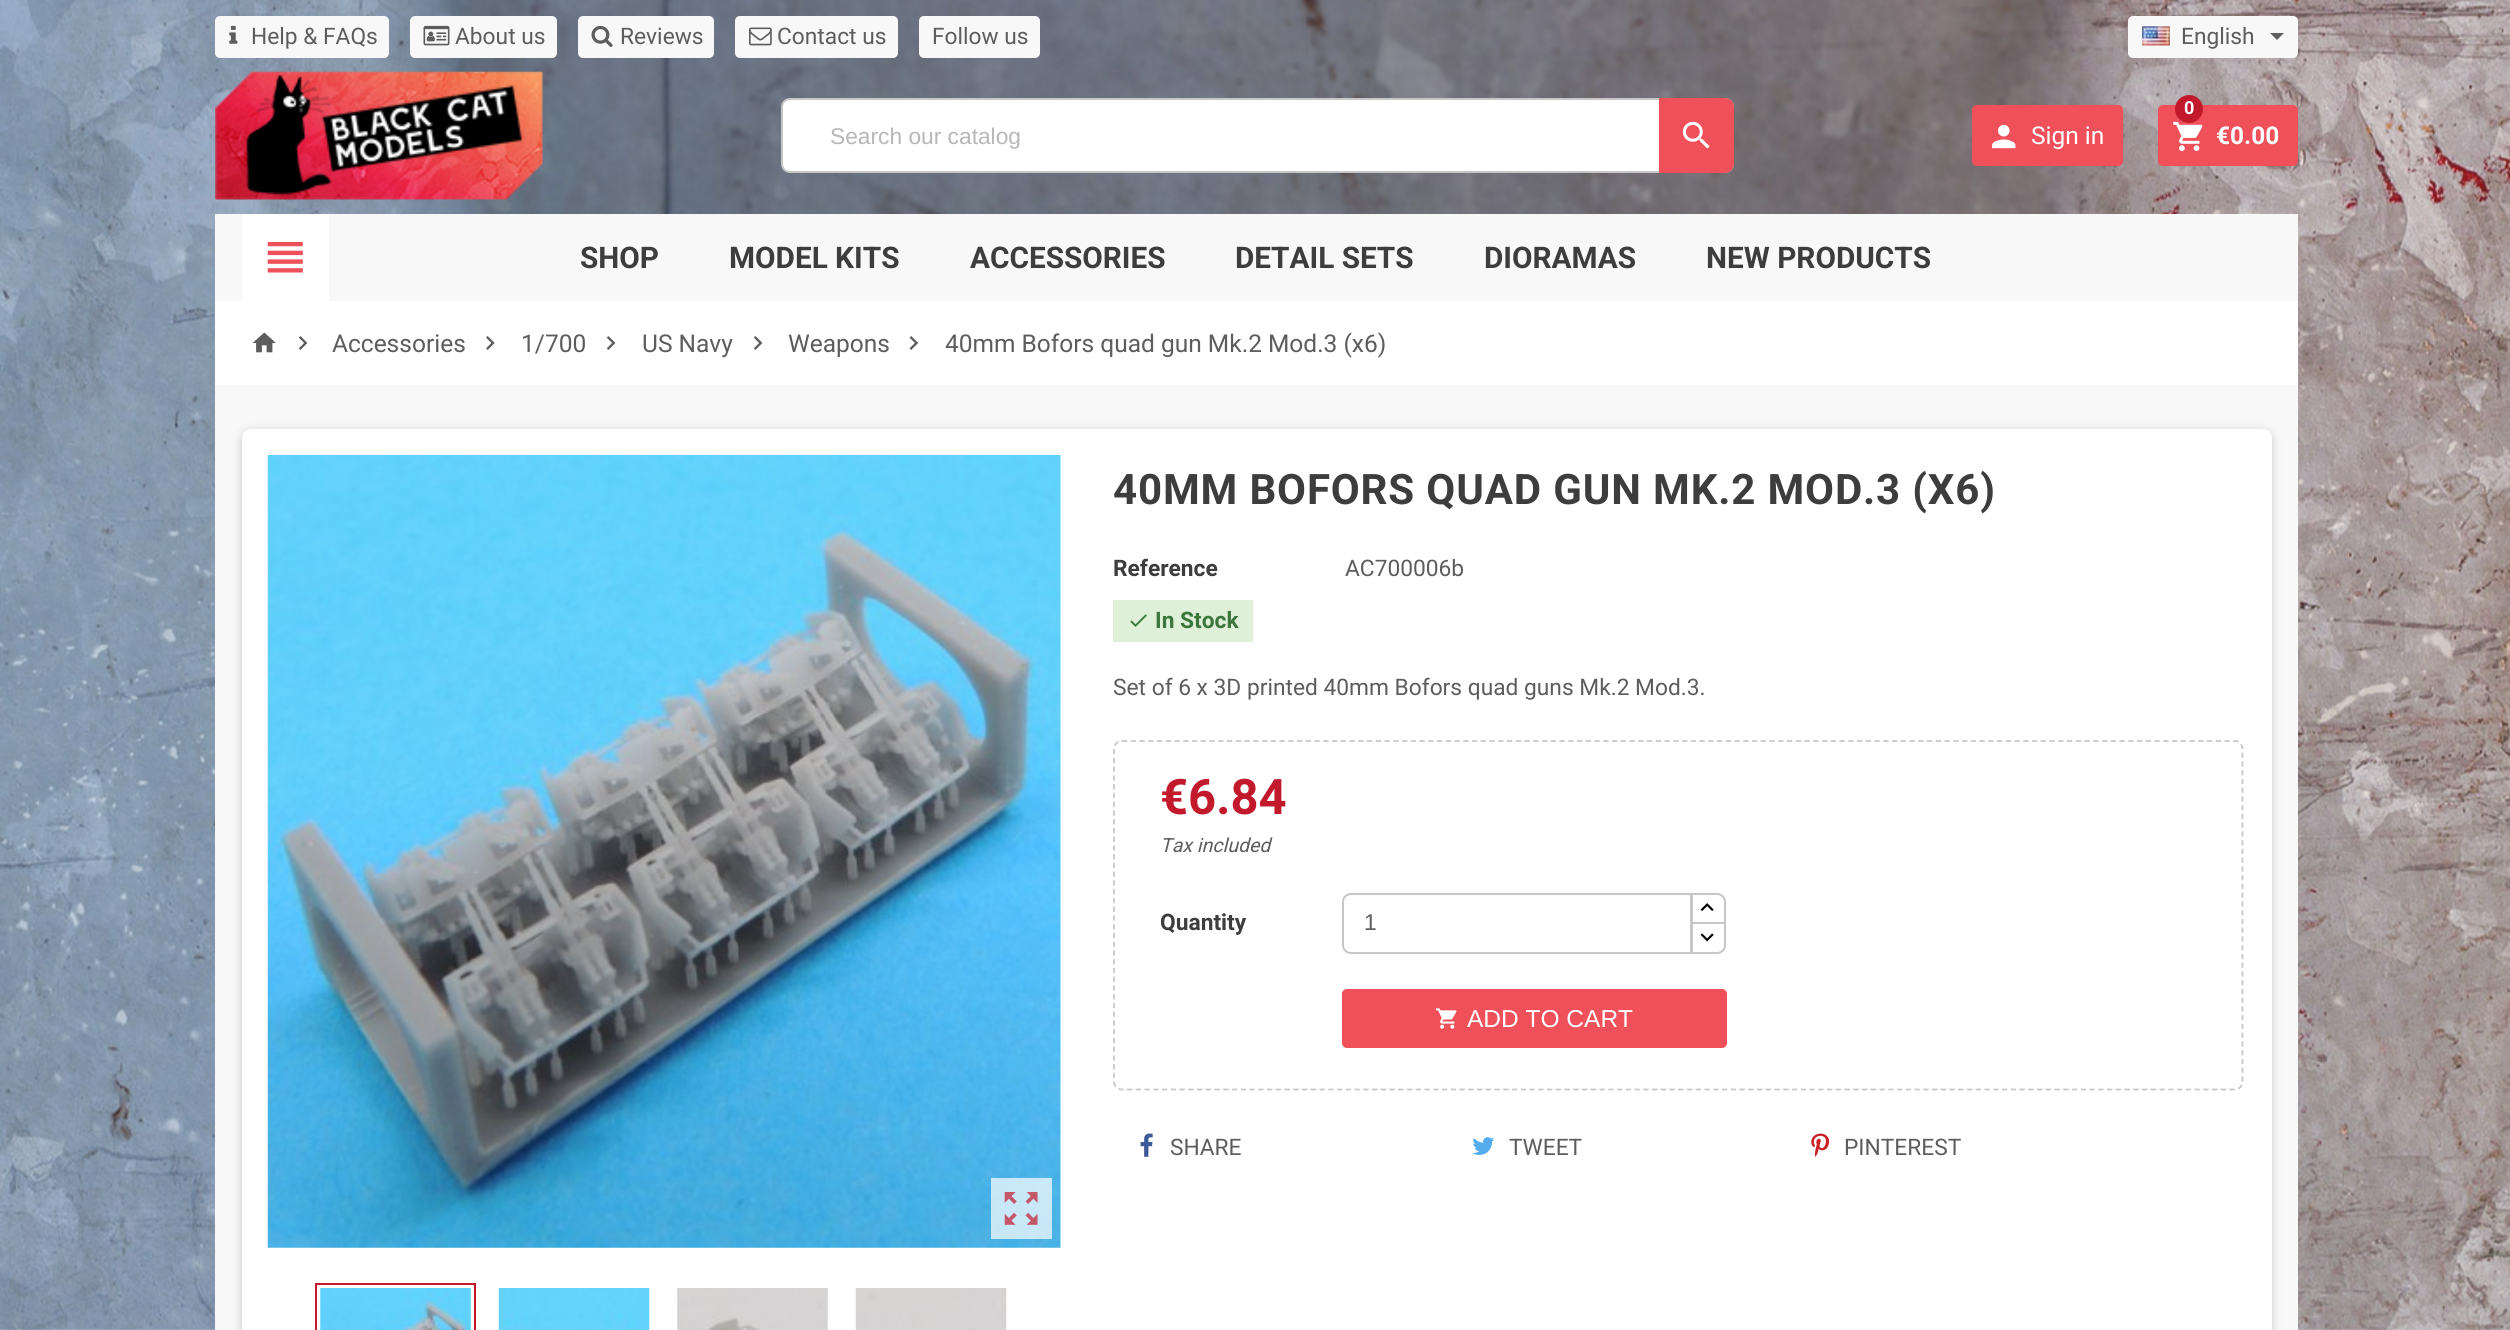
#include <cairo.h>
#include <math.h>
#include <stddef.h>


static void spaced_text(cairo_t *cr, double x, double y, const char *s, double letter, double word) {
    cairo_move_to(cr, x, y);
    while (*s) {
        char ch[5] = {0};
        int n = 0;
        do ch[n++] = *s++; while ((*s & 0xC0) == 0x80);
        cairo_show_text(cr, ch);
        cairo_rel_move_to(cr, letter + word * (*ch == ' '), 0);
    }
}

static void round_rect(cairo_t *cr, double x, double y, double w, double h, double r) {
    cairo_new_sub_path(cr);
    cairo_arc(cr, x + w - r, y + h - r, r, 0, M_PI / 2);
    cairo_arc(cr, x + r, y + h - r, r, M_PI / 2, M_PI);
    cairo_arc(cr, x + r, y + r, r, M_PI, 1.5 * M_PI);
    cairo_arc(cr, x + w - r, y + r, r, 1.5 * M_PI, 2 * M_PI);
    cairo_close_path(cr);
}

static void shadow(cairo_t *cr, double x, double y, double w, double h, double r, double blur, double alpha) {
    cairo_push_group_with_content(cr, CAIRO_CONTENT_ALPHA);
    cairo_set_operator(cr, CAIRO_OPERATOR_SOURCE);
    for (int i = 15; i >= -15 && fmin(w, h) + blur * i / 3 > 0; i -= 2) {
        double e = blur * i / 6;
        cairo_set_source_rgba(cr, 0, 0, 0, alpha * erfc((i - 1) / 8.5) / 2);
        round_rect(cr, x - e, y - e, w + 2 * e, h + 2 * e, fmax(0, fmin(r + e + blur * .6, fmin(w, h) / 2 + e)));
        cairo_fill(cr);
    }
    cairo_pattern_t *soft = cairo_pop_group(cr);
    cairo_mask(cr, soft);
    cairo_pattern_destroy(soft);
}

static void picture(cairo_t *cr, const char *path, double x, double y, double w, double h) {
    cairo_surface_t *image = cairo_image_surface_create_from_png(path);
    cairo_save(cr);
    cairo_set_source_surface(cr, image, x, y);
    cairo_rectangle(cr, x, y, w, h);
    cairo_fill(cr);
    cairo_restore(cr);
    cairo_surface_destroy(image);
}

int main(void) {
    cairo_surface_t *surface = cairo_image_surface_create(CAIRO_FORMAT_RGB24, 2510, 1330);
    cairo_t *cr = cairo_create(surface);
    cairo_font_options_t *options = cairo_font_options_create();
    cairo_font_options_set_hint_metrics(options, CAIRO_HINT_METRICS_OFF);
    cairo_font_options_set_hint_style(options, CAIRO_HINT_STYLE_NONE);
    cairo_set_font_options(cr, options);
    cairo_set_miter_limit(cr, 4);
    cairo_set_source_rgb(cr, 1, 1, 1);
    cairo_paint(cr);
    picture(cr, "img1.png", 0, 0, 2510, 1330);
    cairo_set_source_rgb(cr, 0.969, 0.969, 0.969);
    round_rect(cr, 215, 16, 174, 42, 5);
    cairo_fill(cr);
    picture(cr, "img2.png", 229, 25, 9, 19);
    cairo_select_font_face(cr, "Roboto", CAIRO_FONT_SLANT_NORMAL, CAIRO_FONT_WEIGHT_NORMAL);
    cairo_set_font_size(cr, 22.75);
    cairo_set_source_rgb(cr, 0.365, 0.365, 0.365);
    cairo_move_to(cr, 251, 44);
    cairo_show_text(cr, "Help & FAQs");
    cairo_set_source_rgb(cr, 0.969, 0.969, 0.969);
    round_rect(cr, 410, 16, 147, 42, 5);
    cairo_fill(cr);
    picture(cr, "img3.png", 423, 25, 27, 21);
    cairo_set_source_rgb(cr, 0.365, 0.365, 0.365);
    cairo_move_to(cr, 455, 44);
    cairo_show_text(cr, "About us");
    cairo_set_source_rgb(cr, 0.969, 0.969, 0.969);
    round_rect(cr, 578, 16, 136, 42, 5);
    cairo_fill(cr);
    picture(cr, "img4.png", 591, 25, 22, 22);
    cairo_set_source_rgb(cr, 0.365, 0.365, 0.365);
    cairo_move_to(cr, 620, 44);
    cairo_show_text(cr, "Reviews");
    cairo_set_source_rgb(cr, 0.969, 0.969, 0.969);
    round_rect(cr, 735, 16, 163, 42, 5);
    cairo_fill(cr);
    picture(cr, "img5.png", 749, 27, 23, 19);
    cairo_set_source_rgb(cr, 0.365, 0.365, 0.365);
    cairo_move_to(cr, 777, 44);
    cairo_show_text(cr, "Contact us");
    cairo_set_source_rgb(cr, 0.969, 0.969, 0.969);
    round_rect(cr, 919, 16, 121, 42, 5);
    cairo_fill(cr);
    cairo_set_source_rgb(cr, 0.365, 0.365, 0.365);
    cairo_move_to(cr, 932, 44);
    cairo_show_text(cr, "Follow us");
    cairo_set_source_rgb(cr, 0.969, 0.969, 0.969);
    round_rect(cr, 2128, 16, 170, 42, 5);
    cairo_fill(cr);
    picture(cr, "img6.png", 2142, 26, 28, 20);
    cairo_set_source_rgb(cr, 0.365, 0.365, 0.365);
    cairo_move_to(cr, 2181, 44);
    cairo_show_text(cr, "English");
    cairo_new_path(cr);
    cairo_move_to(cr, 2270, 33);
    cairo_line_to(cr, 2284, 33);
    cairo_line_to(cr, 2277, 40);
    cairo_close_path(cr);
    cairo_fill(cr);
    picture(cr, "img7.png", 215, 71, 328, 129);
    cairo_set_source_rgb(cr, 1, 1, 1);
    round_rect(cr, 782, 99, 951, 73, 8);
    cairo_fill_preserve(cr);
    cairo_set_source_rgb(cr, 0.78, 0.78, 0.78);
    cairo_stroke(cr);
    cairo_select_font_face(cr, "Liberation Sans", CAIRO_FONT_SLANT_NORMAL, CAIRO_FONT_WEIGHT_NORMAL);
    cairo_set_source_rgb(cr, 0.718, 0.718, 0.718);
    cairo_move_to(cr, 830, 144);
    cairo_show_text(cr, "Search our catalog");
    cairo_set_source_rgb(cr, 0.941, 0.314, 0.353);
    cairo_new_path(cr);
    cairo_move_to(cr, 1659, 98);
    cairo_line_to(cr, 1725, 98);
    cairo_curve_to(cr, 1730, 98, 1734, 102, 1734, 107);
    cairo_line_to(cr, 1734, 164);
    cairo_curve_to(cr, 1734, 169, 1730, 173, 1725, 173);
    cairo_line_to(cr, 1659, 173);
    cairo_close_path(cr);
    cairo_fill(cr);
    picture(cr, "img8.png", 1682, 121, 28, 28);
    round_rect(cr, 1972, 105, 151, 61, 5);
    cairo_fill(cr);
    picture(cr, "img9.png", 1992, 124, 24, 25);
    cairo_select_font_face(cr, "Roboto", CAIRO_FONT_SLANT_NORMAL, CAIRO_FONT_WEIGHT_NORMAL);
    cairo_set_font_size(cr, 24.5);
    cairo_set_source_rgb(cr, 1, 1, 1);
    cairo_move_to(cr, 2031, 144);
    cairo_show_text(cr, "Sign in");
    cairo_set_source_rgb(cr, 0.941, 0.314, 0.353);
    round_rect(cr, 2158, 105, 140, 61, 5);
    cairo_fill(cr);
    picture(cr, "img10.png", 2173, 121, 30, 30);
    cairo_set_source_rgb(cr, 0.765, 0.098, 0.176);
    cairo_arc(cr, 2189, 109, 14, 0, 2 * M_PI);
    cairo_fill(cr);
    cairo_select_font_face(cr, "Roboto", CAIRO_FONT_SLANT_NORMAL, CAIRO_FONT_WEIGHT_BOLD);
    cairo_set_font_size(cr, 18);
    cairo_set_source_rgb(cr, 1, 1, 1);
    cairo_move_to(cr, 2184, 114);
    cairo_show_text(cr, "0");
    cairo_set_font_size(cr, 24.5);
    cairo_move_to(cr, 2216, 144);
    cairo_show_text(cr, "€0.00");
    cairo_set_source_rgb(cr, 0.969, 0.969, 0.969);
    cairo_rectangle(cr, 215, 214, 2083, 87);
    cairo_fill(cr);
    cairo_set_source_rgb(cr, 1, 1, 1);
    cairo_rectangle(cr, 242, 214, 87, 87);
    cairo_fill(cr);
    picture(cr, "img11.png", 267, 241, 36, 32);
    cairo_select_font_face(cr, "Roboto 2", CAIRO_FONT_SLANT_NORMAL, CAIRO_FONT_WEIGHT_BOLD);
    cairo_set_font_size(cr, 29.75);
    cairo_set_source_rgb(cr, 0.239, 0.239, 0.239);
    cairo_move_to(cr, 580, 268);
    cairo_show_text(cr, "SHOP");
    cairo_move_to(cr, 729, 268);
    cairo_show_text(cr, "MODEL KITS");
    cairo_move_to(cr, 970, 268);
    cairo_show_text(cr, "ACCESSORIES");
    cairo_move_to(cr, 1235, 268);
    cairo_show_text(cr, "DETAIL SETS");
    cairo_move_to(cr, 1484, 268);
    cairo_show_text(cr, "DIORAMAS");
    cairo_move_to(cr, 1706, 268);
    cairo_show_text(cr, "NEW PRODUCTS");
    cairo_set_source_rgb(cr, 1, 1, 1);
    cairo_rectangle(cr, 215, 301, 2083, 84);
    cairo_fill(cr);
    picture(cr, "img12.png", 252, 332, 24, 21);
    picture(cr, "img13.png", 298, 336, 10, 14);
    cairo_select_font_face(cr, "Roboto", CAIRO_FONT_SLANT_NORMAL, CAIRO_FONT_WEIGHT_NORMAL);
    cairo_set_font_size(cr, 24.5);
    cairo_set_source_rgb(cr, 0.365, 0.365, 0.365);
    cairo_move_to(cr, 332, 352);
    cairo_show_text(cr, "Accessories");
    picture(cr, "img14.png", 486, 336, 9, 14);
    cairo_move_to(cr, 521, 352);
    cairo_show_text(cr, "1/700");
    picture(cr, "img13.png", 606, 336, 10, 14);
    cairo_move_to(cr, 642, 352);
    cairo_show_text(cr, "US Navy");
    picture(cr, "img13.png", 753, 336, 10, 14);
    cairo_move_to(cr, 788, 352);
    cairo_show_text(cr, "Weapons");
    picture(cr, "img15.png", 909, 336, 9, 14);
    cairo_move_to(cr, 945, 352);
    cairo_show_text(cr, "40mm Bofors quad gun Mk.2 Mod.3 (x6)");
    cairo_set_source_rgb(cr, 0.969, 0.969, 0.969);
    cairo_rectangle(cr, 215, 385, 2083, 945);
    cairo_fill(cr);
    cairo_set_source_rgb(cr, 0, 0, 0);
    shadow(cr, 242, 431, 2030, 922, 9, 4.5, 0.2);
    cairo_set_source_rgb(cr, 1, 1, 1);
    round_rect(cr, 242, 429, 2030, 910, 9);
    cairo_fill(cr);
    picture(cr, "img16.png", 267, 455, 794, 793);
    cairo_set_source_rgba(cr, 1, 1, 1, 0.7);
    cairo_rectangle(cr, 991, 1178, 61, 61);
    cairo_fill(cr);
    picture(cr, "img17.png", 1004, 1192, 34, 33);
    cairo_rectangle(cr, 316, 1284, 159, 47);
    cairo_set_source_rgb(cr, 0.765, 0.098, 0.176);
    cairo_stroke(cr);
    picture(cr, "img18.png", 320, 1288, 151, 42);
    picture(cr, "img19.png", 498, 1288, 152, 42);
    picture(cr, "img20.png", 677, 1288, 151, 42);
    picture(cr, "img21.png", 855, 1288, 152, 42);
    cairo_select_font_face(cr, "Roboto 2", CAIRO_FONT_SLANT_NORMAL, CAIRO_FONT_WEIGHT_BOLD);
    cairo_set_font_size(cr, 42);
    cairo_set_source_rgb(cr, 0.239, 0.239, 0.239);
    spaced_text(cr, 1113, 504, "40MM BOFORS QUAD GUN MK.2 MOD.3 (X6)", 0.85, 0);
    cairo_select_font_face(cr, "Roboto", CAIRO_FONT_SLANT_NORMAL, CAIRO_FONT_WEIGHT_BOLD);
    cairo_set_font_size(cr, 22.75);
    cairo_move_to(cr, 1113, 576);
    cairo_show_text(cr, "Reference");
    cairo_select_font_face(cr, "Roboto", CAIRO_FONT_SLANT_NORMAL, CAIRO_FONT_WEIGHT_NORMAL);
    cairo_set_source_rgb(cr, 0.365, 0.365, 0.365);
    cairo_move_to(cr, 1345, 576);
    cairo_show_text(cr, "AC700006b");
    cairo_set_source_rgb(cr, 0.875, 0.941, 0.847);
    cairo_rectangle(cr, 1113, 600, 140, 42);
    cairo_fill(cr);
    picture(cr, "img22.png", 1130, 614, 17, 13);
    cairo_select_font_face(cr, "Roboto", CAIRO_FONT_SLANT_NORMAL, CAIRO_FONT_WEIGHT_BOLD);
    cairo_set_source_rgb(cr, 0.235, 0.463, 0.239);
    cairo_move_to(cr, 1155, 628);
    cairo_show_text(cr, "In Stock");
    cairo_select_font_face(cr, "Roboto", CAIRO_FONT_SLANT_NORMAL, CAIRO_FONT_WEIGHT_NORMAL);
    cairo_set_source_rgb(cr, 0.365, 0.365, 0.365);
    cairo_move_to(cr, 1113, 695);
    cairo_show_text(cr, "Set of 6 x 3D printed 40mm Bofors quad guns Mk.2 Mod.3.");
    cairo_new_path(cr);
    cairo_move_to(cr, 1122, 741);
    cairo_line_to(cr, 2235, 741);
    cairo_curve_to(cr, 2239, 741, 2242.5, 744.5, 2242.5, 749);
    cairo_line_to(cr, 2242.5, 1081.5);
    cairo_curve_to(cr, 2242.5, 1086, 2239, 1089.5, 2235, 1089.5);
    cairo_line_to(cr, 1122, 1089.5);
    cairo_curve_to(cr, 1117.5, 1089.5, 1114, 1086, 1114, 1081.5);
    cairo_line_to(cr, 1114, 749);
    cairo_curve_to(cr, 1114, 744.5, 1117.5, 741, 1122, 741);
    cairo_close_path(cr);
    cairo_set_source_rgb(cr, 0.78, 0.78, 0.78);
    cairo_set_line_width(cr, 1.8);
    cairo_set_dash(cr, (double[]){5.25, 3.5}, 2, 0);
    cairo_stroke(cr);
    cairo_select_font_face(cr, "Roboto", CAIRO_FONT_SLANT_NORMAL, CAIRO_FONT_WEIGHT_BOLD);
    cairo_set_font_size(cr, 49);
    cairo_set_source_rgb(cr, 0.765, 0.098, 0.176);
    cairo_move_to(cr, 1160, 814);
    cairo_show_text(cr, "€6.84");
    cairo_select_font_face(cr, "Roboto", CAIRO_FONT_SLANT_ITALIC, CAIRO_FONT_WEIGHT_NORMAL);
    cairo_set_font_size(cr, 19.5);
    cairo_set_source_rgb(cr, 0.365, 0.365, 0.365);
    cairo_move_to(cr, 1160, 852);
    cairo_show_text(cr, "Tax included");
    cairo_select_font_face(cr, "Roboto", CAIRO_FONT_SLANT_NORMAL, CAIRO_FONT_WEIGHT_BOLD);
    cairo_set_font_size(cr, 22.75);
    cairo_set_source_rgb(cr, 0.239, 0.239, 0.239);
    cairo_move_to(cr, 1160, 930);
    cairo_show_text(cr, "Quantity");
    cairo_new_path(cr);
    cairo_move_to(cr, 1692, 894);
    cairo_line_to(cr, 1717, 894);
    cairo_curve_to(cr, 1721.5, 894, 1725, 897.5, 1725, 902);
    cairo_line_to(cr, 1725, 923);
    cairo_line_to(cr, 1692, 923);
    cairo_close_path(cr);
    cairo_set_source_rgb(cr, 0.78, 0.78, 0.78);
    cairo_set_line_width(cr, 2);
    cairo_set_dash(cr, NULL, 0, 0);
    cairo_stroke(cr);
    cairo_set_source_rgb(cr, 1, 1, 1);
    cairo_new_path(cr);
    cairo_move_to(cr, 1692, 923);
    cairo_line_to(cr, 1725, 923);
    cairo_line_to(cr, 1725, 945);
    cairo_curve_to(cr, 1725, 949.5, 1721.5, 953, 1717, 953);
    cairo_line_to(cr, 1692, 953);
    cairo_close_path(cr);
    cairo_fill_preserve(cr);
    cairo_set_source_rgb(cr, 0.78, 0.78, 0.78);
    cairo_stroke(cr);
    cairo_new_path(cr);
    cairo_move_to(cr, 1351, 894);
    cairo_line_to(cr, 1691, 894);
    cairo_line_to(cr, 1691, 953);
    cairo_line_to(cr, 1351, 953);
    cairo_curve_to(cr, 1346.5, 953, 1343, 949.5, 1343, 945);
    cairo_line_to(cr, 1343, 902);
    cairo_curve_to(cr, 1343, 897.5, 1346.5, 894, 1351, 894);
    cairo_close_path(cr);
    cairo_stroke(cr);
    cairo_select_font_face(cr, "Liberation Sans", CAIRO_FONT_SLANT_NORMAL, CAIRO_FONT_WEIGHT_NORMAL);
    cairo_set_source_rgb(cr, 0.365, 0.365, 0.365);
    cairo_move_to(cr, 1364, 930);
    cairo_show_text(cr, "1");
    picture(cr, "img23.png", 1700, 903, 14, 8);
    picture(cr, "img24.png", 1700, 933, 14, 9);
    cairo_set_source_rgb(cr, 0.941, 0.314, 0.353);
    round_rect(cr, 1342, 989, 385, 59, 5);
    cairo_fill(cr);
    picture(cr, "img25.png", 1436, 1008, 21, 21);
    cairo_set_font_size(cr, 24.5);
    cairo_set_source_rgb(cr, 1, 1, 1);
    cairo_move_to(cr, 1467, 1027);
    cairo_show_text(cr, "ADD TO CART");
    picture(cr, "img26.png", 1140, 1133, 13, 24);
    cairo_select_font_face(cr, "Roboto", CAIRO_FONT_SLANT_NORMAL, CAIRO_FONT_WEIGHT_NORMAL);
    cairo_set_font_size(cr, 22.75);
    cairo_set_source_rgb(cr, 0.365, 0.365, 0.365);
    cairo_move_to(cr, 1170, 1155);
    cairo_show_text(cr, "SHARE");
    picture(cr, "img27.png", 1472, 1137, 23, 18);
    cairo_move_to(cr, 1509, 1155);
    cairo_show_text(cr, "TWEET");
    picture(cr, "img28.png", 1811, 1133, 19, 24);
    cairo_move_to(cr, 1844, 1155);
    cairo_show_text(cr, "PINTEREST");
    cairo_surface_write_to_png(surface, "page.png");
    cairo_font_options_destroy(options);
    cairo_destroy(cr);
    cairo_surface_destroy(surface);
    return 0;
}
